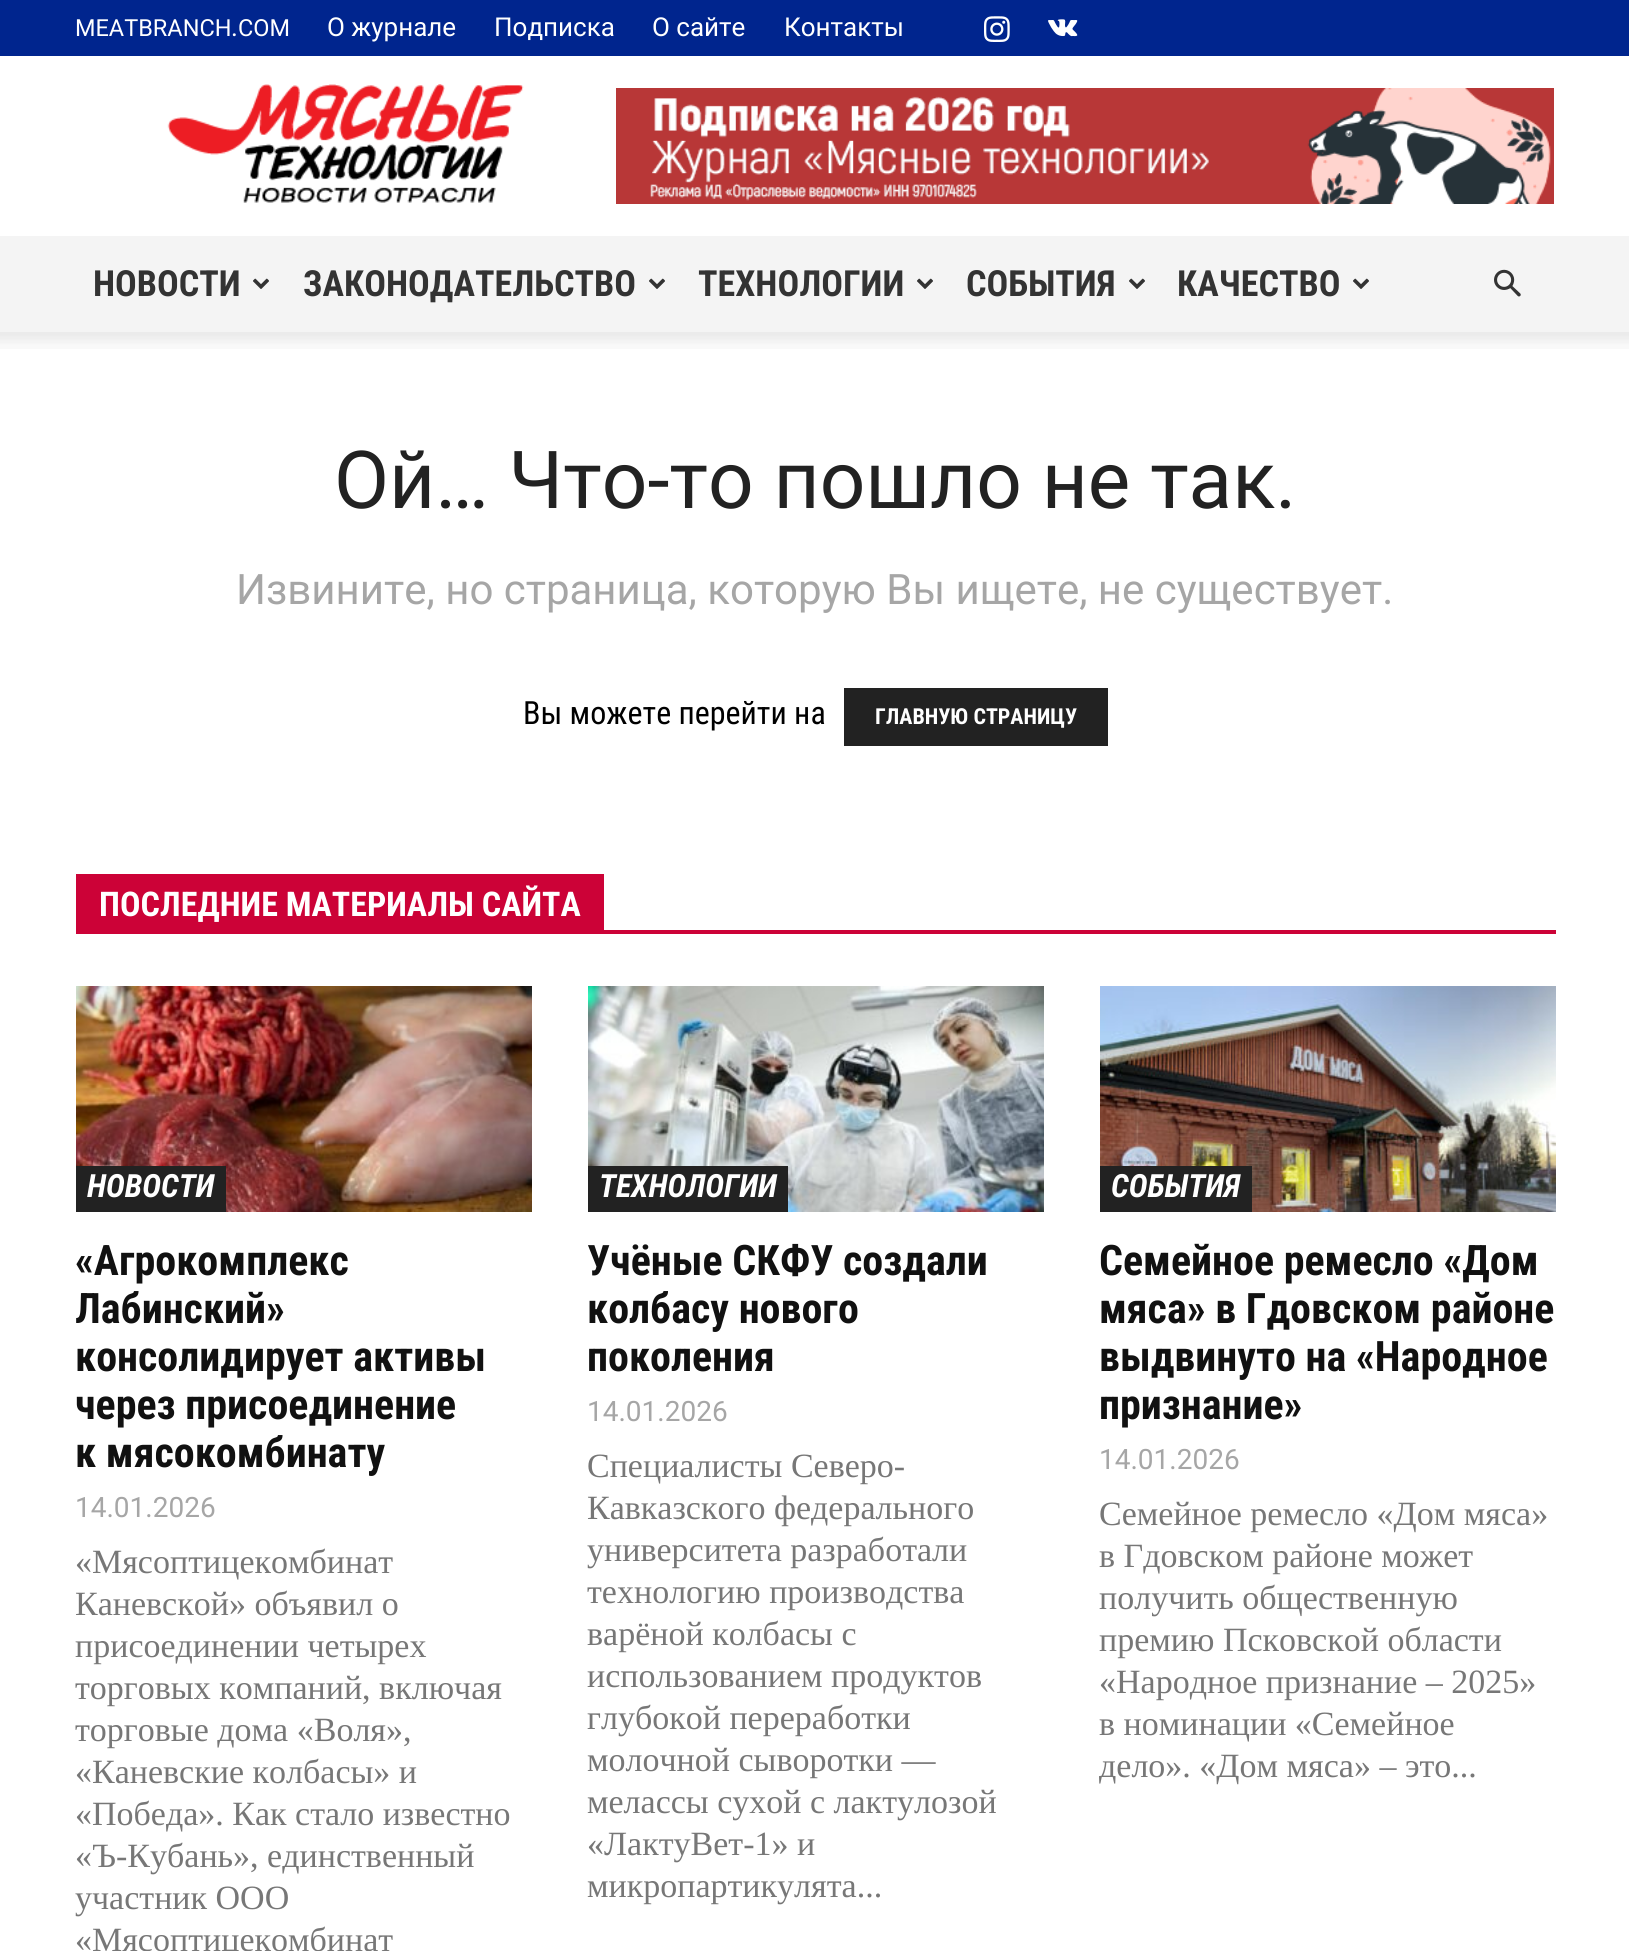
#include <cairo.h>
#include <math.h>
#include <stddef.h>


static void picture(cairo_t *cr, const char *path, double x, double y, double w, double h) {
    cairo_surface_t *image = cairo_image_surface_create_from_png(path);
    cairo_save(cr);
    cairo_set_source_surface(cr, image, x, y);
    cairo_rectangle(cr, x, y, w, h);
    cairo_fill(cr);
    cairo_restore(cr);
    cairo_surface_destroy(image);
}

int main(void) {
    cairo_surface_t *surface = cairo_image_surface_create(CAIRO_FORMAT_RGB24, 1629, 1951);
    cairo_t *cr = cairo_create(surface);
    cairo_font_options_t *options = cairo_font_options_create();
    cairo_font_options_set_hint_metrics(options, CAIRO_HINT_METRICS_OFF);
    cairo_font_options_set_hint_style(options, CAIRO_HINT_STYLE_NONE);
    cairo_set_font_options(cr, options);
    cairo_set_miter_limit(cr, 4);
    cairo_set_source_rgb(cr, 1, 1, 1);
    cairo_paint(cr);
    cairo_set_source_rgb(cr, 0, 0.145, 0.557);
    cairo_rectangle(cr, 0, 0, 1629, 56);
    cairo_fill(cr);
    cairo_select_font_face(cr, "Roboto", CAIRO_FONT_SLANT_NORMAL, CAIRO_FONT_WEIGHT_NORMAL);
    cairo_set_font_size(cr, 23.5);
    cairo_set_source_rgb(cr, 1, 1, 1);
    cairo_move_to(cr, 75, 36);
    cairo_show_text(cr, "MEATBRANCH");
    cairo_set_font_size(cr, 26);
    cairo_move_to(cr, 231, 36);
    cairo_show_text(cr, ".");
    cairo_set_font_size(cr, 23.5);
    cairo_move_to(cr, 238, 36);
    cairo_show_text(cr, "COM");
    cairo_set_font_size(cr, 26);
    cairo_move_to(cr, 327, 36);
    cairo_show_text(cr, "О журнале");
    cairo_move_to(cr, 494, 36);
    cairo_show_text(cr, "Подписка");
    cairo_move_to(cr, 652, 36);
    cairo_show_text(cr, "О сайте");
    cairo_move_to(cr, 784, 36);
    cairo_show_text(cr, "Контакты");
    picture(cr, "img1.png", 984, 16, 26, 26);
    picture(cr, "img2.png", 1048, 19, 30, 18);
    picture(cr, "img3.png", 167, 84, 357, 119);
    picture(cr, "img4.png", 616, 88, 938, 116);
    cairo_set_source_rgb(cr, 0.957, 0.957, 0.957);
    cairo_rectangle(cr, 0, 236, 1629, 96);
    cairo_fill(cr);
    cairo_select_font_face(cr, "Roboto Condensed", CAIRO_FONT_SLANT_NORMAL, CAIRO_FONT_WEIGHT_BOLD);
    cairo_set_font_size(cr, 36);
    cairo_set_source_rgb(cr, 0.2, 0.2, 0.2);
    cairo_move_to(cr, 93, 296);
    cairo_show_text(cr, "НОВОСТИ");
    picture(cr, "img5.png", 253, 278, 16, 11);
    cairo_move_to(cr, 303, 296);
    cairo_show_text(cr, "ЗАКОНОДАТЕЛЬСТВО");
    picture(cr, "img5.png", 649, 278, 16, 11);
    cairo_move_to(cr, 698, 296);
    cairo_show_text(cr, "ТЕХНОЛОГИИ");
    picture(cr, "img5.png", 917, 278, 16, 11);
    cairo_move_to(cr, 966, 296);
    cairo_show_text(cr, "СОБЫТИЯ");
    picture(cr, "img5.png", 1129, 278, 16, 11);
    cairo_move_to(cr, 1177, 296);
    cairo_show_text(cr, "КАЧЕСТВО");
    picture(cr, "img5.png", 1353, 278, 16, 11);
    picture(cr, "img6.png", 1494, 269, 27, 28);
    picture(cr, "img7.png", 0, 332, 1629, 17);
    cairo_select_font_face(cr, "Roboto", CAIRO_FONT_SLANT_NORMAL, CAIRO_FONT_WEIGHT_NORMAL);
    cairo_set_font_size(cr, 80);
    cairo_set_source_rgb(cr, 0.133, 0.133, 0.133);
    cairo_move_to(cr, 334, 508);
    cairo_show_text(cr, "Ой… Что-то пошло не так.");
    cairo_set_font_size(cr, 42);
    cairo_set_source_rgb(cr, 0.651, 0.651, 0.651);
    cairo_move_to(cr, 236, 604);
    cairo_show_text(cr, "Извините, но страница, которую Вы ищете, не существует.");
    cairo_select_font_face(cr, "Roboto Condensed", CAIRO_FONT_SLANT_NORMAL, CAIRO_FONT_WEIGHT_NORMAL);
    cairo_set_font_size(cr, 32);
    cairo_set_source_rgb(cr, 0, 0, 0);
    cairo_move_to(cr, 523, 724);
    cairo_show_text(cr, "Вы можете перейти на");
    cairo_set_source_rgb(cr, 0.133, 0.133, 0.133);
    cairo_rectangle(cr, 844, 688, 264, 58);
    cairo_fill(cr);
    cairo_select_font_face(cr, "Roboto Condensed", CAIRO_FONT_SLANT_NORMAL, CAIRO_FONT_WEIGHT_BOLD);
    cairo_set_font_size(cr, 22);
    cairo_set_source_rgb(cr, 1, 1, 1);
    cairo_move_to(cr, 875, 724);
    cairo_show_text(cr, "ГЛАВНУЮ СТРАНИЦУ");
    cairo_set_source_rgb(cr, 0.8, 0.008, 0.216);
    cairo_rectangle(cr, 76, 930, 1480, 4);
    cairo_fill(cr);
    cairo_rectangle(cr, 76, 874, 528, 56);
    cairo_fill(cr);
    cairo_set_font_size(cr, 34);
    cairo_set_source_rgb(cr, 1, 1, 1);
    cairo_move_to(cr, 99, 916);
    cairo_show_text(cr, "ПОСЛЕДНИЕ МАТЕРИАЛЫ САЙТА");
    picture(cr, "img8.png", 76, 986, 456, 226);
    cairo_set_source_rgb(cr, 0.133, 0.133, 0.133);
    cairo_rectangle(cr, 76, 1166, 150, 46);
    cairo_fill(cr);
    cairo_select_font_face(cr, "Roboto Condensed", CAIRO_FONT_SLANT_ITALIC, CAIRO_FONT_WEIGHT_BOLD);
    cairo_set_font_size(cr, 32);
    cairo_set_source_rgb(cr, 1, 1, 1);
    cairo_move_to(cr, 87, 1197);
    cairo_show_text(cr, "НОВОСТИ");
    cairo_select_font_face(cr, "Roboto Condensed", CAIRO_FONT_SLANT_NORMAL, CAIRO_FONT_WEIGHT_BOLD);
    cairo_set_font_size(cr, 42);
    cairo_set_source_rgb(cr, 0.067, 0.067, 0.067);
    cairo_move_to(cr, 75, 1275);
    cairo_show_text(cr, "«Агрокомплекс");
    cairo_move_to(cr, 75, 1323);
    cairo_show_text(cr, "Лабинский»");
    cairo_move_to(cr, 75, 1371);
    cairo_show_text(cr, "консолидирует активы");
    cairo_move_to(cr, 75, 1419);
    cairo_show_text(cr, "через присоединение");
    cairo_move_to(cr, 75, 1467);
    cairo_show_text(cr, "к мясокомбинату");
    cairo_select_font_face(cr, "Roboto", CAIRO_FONT_SLANT_NORMAL, CAIRO_FONT_WEIGHT_NORMAL);
    cairo_set_font_size(cr, 28);
    cairo_set_source_rgb(cr, 0.651, 0.651, 0.651);
    cairo_move_to(cr, 75, 1517);
    cairo_show_text(cr, "14.01.2026");
    cairo_select_font_face(cr, "Liberation Serif", CAIRO_FONT_SLANT_NORMAL, CAIRO_FONT_WEIGHT_NORMAL);
    cairo_set_font_size(cr, 34);
    cairo_set_source_rgb(cr, 0.467, 0.467, 0.467);
    cairo_move_to(cr, 75, 1573);
    cairo_show_text(cr, "«Мясоптицекомбинат");
    cairo_move_to(cr, 75, 1615);
    cairo_show_text(cr, "Каневской» объявил о");
    cairo_move_to(cr, 75, 1657);
    cairo_show_text(cr, "присоединении четырех");
    cairo_move_to(cr, 75, 1699);
    cairo_show_text(cr, "торговых компаний, включая");
    cairo_move_to(cr, 75, 1741);
    cairo_show_text(cr, "торговые дома «Воля»,");
    cairo_move_to(cr, 75, 1783);
    cairo_show_text(cr, "«Каневские колбасы» и");
    cairo_move_to(cr, 75, 1825);
    cairo_show_text(cr, "«Победа». Как стало известно");
    cairo_move_to(cr, 75, 1867);
    cairo_show_text(cr, "«Ъ-Кубань», единственный");
    cairo_move_to(cr, 75, 1909);
    cairo_show_text(cr, "участник ООО");
    cairo_move_to(cr, 75, 1951);
    cairo_show_text(cr, "«Мясоптицекомбинат");
    picture(cr, "img9.png", 588, 986, 456, 226);
    cairo_set_source_rgb(cr, 0.133, 0.133, 0.133);
    cairo_rectangle(cr, 588, 1166, 200, 46);
    cairo_fill(cr);
    cairo_select_font_face(cr, "Roboto Condensed", CAIRO_FONT_SLANT_ITALIC, CAIRO_FONT_WEIGHT_BOLD);
    cairo_set_font_size(cr, 32);
    cairo_set_source_rgb(cr, 1, 1, 1);
    cairo_move_to(cr, 599, 1197);
    cairo_show_text(cr, "ТЕХНОЛОГИИ");
    cairo_select_font_face(cr, "Roboto Condensed", CAIRO_FONT_SLANT_NORMAL, CAIRO_FONT_WEIGHT_BOLD);
    cairo_set_font_size(cr, 42);
    cairo_set_source_rgb(cr, 0.067, 0.067, 0.067);
    cairo_move_to(cr, 587, 1275);
    cairo_show_text(cr, "Учёные СКФУ создали");
    cairo_move_to(cr, 587, 1323);
    cairo_show_text(cr, "колбасу нового");
    cairo_move_to(cr, 587, 1371);
    cairo_show_text(cr, "поколения");
    cairo_select_font_face(cr, "Roboto", CAIRO_FONT_SLANT_NORMAL, CAIRO_FONT_WEIGHT_NORMAL);
    cairo_set_font_size(cr, 28);
    cairo_set_source_rgb(cr, 0.651, 0.651, 0.651);
    cairo_move_to(cr, 587, 1421);
    cairo_show_text(cr, "14.01.2026");
    cairo_select_font_face(cr, "Liberation Serif", CAIRO_FONT_SLANT_NORMAL, CAIRO_FONT_WEIGHT_NORMAL);
    cairo_set_font_size(cr, 34);
    cairo_set_source_rgb(cr, 0.467, 0.467, 0.467);
    cairo_move_to(cr, 587, 1477);
    cairo_show_text(cr, "Специалисты Северо-");
    cairo_move_to(cr, 587, 1519);
    cairo_show_text(cr, "Кавказского федерального");
    cairo_move_to(cr, 587, 1561);
    cairo_show_text(cr, "университета разработали");
    cairo_move_to(cr, 587, 1603);
    cairo_show_text(cr, "технологию производства");
    cairo_move_to(cr, 587, 1645);
    cairo_show_text(cr, "варёной колбасы с");
    cairo_move_to(cr, 587, 1687);
    cairo_show_text(cr, "использованием продуктов");
    cairo_move_to(cr, 587, 1729);
    cairo_show_text(cr, "глубокой переработки");
    cairo_move_to(cr, 587, 1771);
    cairo_show_text(cr, "молочной сыворотки —");
    cairo_move_to(cr, 587, 1813);
    cairo_show_text(cr, "мелассы сухой с лактулозой");
    cairo_move_to(cr, 587, 1855);
    cairo_show_text(cr, "«ЛактуВет-1» и");
    cairo_move_to(cr, 587, 1897);
    cairo_show_text(cr, "микропартикулята...");
    picture(cr, "img10.png", 1100, 986, 456, 226);
    cairo_set_source_rgb(cr, 0.133, 0.133, 0.133);
    cairo_rectangle(cr, 1100, 1166, 152, 46);
    cairo_fill(cr);
    cairo_select_font_face(cr, "Roboto Condensed", CAIRO_FONT_SLANT_ITALIC, CAIRO_FONT_WEIGHT_BOLD);
    cairo_set_font_size(cr, 32);
    cairo_set_source_rgb(cr, 1, 1, 1);
    cairo_move_to(cr, 1111, 1197);
    cairo_show_text(cr, "СОБЫТИЯ");
    cairo_select_font_face(cr, "Roboto Condensed", CAIRO_FONT_SLANT_NORMAL, CAIRO_FONT_WEIGHT_BOLD);
    cairo_set_font_size(cr, 42);
    cairo_set_source_rgb(cr, 0.067, 0.067, 0.067);
    cairo_move_to(cr, 1099, 1275);
    cairo_show_text(cr, "Семейное ремесло «Дом");
    cairo_move_to(cr, 1099, 1323);
    cairo_show_text(cr, "мяса» в Гдовском районе");
    cairo_move_to(cr, 1099, 1371);
    cairo_show_text(cr, "выдвинуто на «Народное");
    cairo_move_to(cr, 1099, 1419);
    cairo_show_text(cr, "признание»");
    cairo_select_font_face(cr, "Roboto", CAIRO_FONT_SLANT_NORMAL, CAIRO_FONT_WEIGHT_NORMAL);
    cairo_set_font_size(cr, 28);
    cairo_set_source_rgb(cr, 0.651, 0.651, 0.651);
    cairo_move_to(cr, 1099, 1469);
    cairo_show_text(cr, "14.01.2026");
    cairo_select_font_face(cr, "Liberation Serif", CAIRO_FONT_SLANT_NORMAL, CAIRO_FONT_WEIGHT_NORMAL);
    cairo_set_font_size(cr, 34);
    cairo_set_source_rgb(cr, 0.467, 0.467, 0.467);
    cairo_move_to(cr, 1099, 1525);
    cairo_show_text(cr, "Семейное ремесло «Дом мяса»");
    cairo_move_to(cr, 1099, 1567);
    cairo_show_text(cr, "в Гдовском районе может");
    cairo_move_to(cr, 1099, 1609);
    cairo_show_text(cr, "получить общественную");
    cairo_move_to(cr, 1099, 1651);
    cairo_show_text(cr, "премию Псковской области");
    cairo_move_to(cr, 1099, 1693);
    cairo_show_text(cr, "«Народное признание – 2025»");
    cairo_move_to(cr, 1099, 1735);
    cairo_show_text(cr, "в номинации «Семейное");
    cairo_move_to(cr, 1099, 1777);
    cairo_show_text(cr, "дело». «Дом мяса» – это...");
    cairo_surface_write_to_png(surface, "page.png");
    cairo_font_options_destroy(options);
    cairo_destroy(cr);
    cairo_surface_destroy(surface);
    return 0;
}
